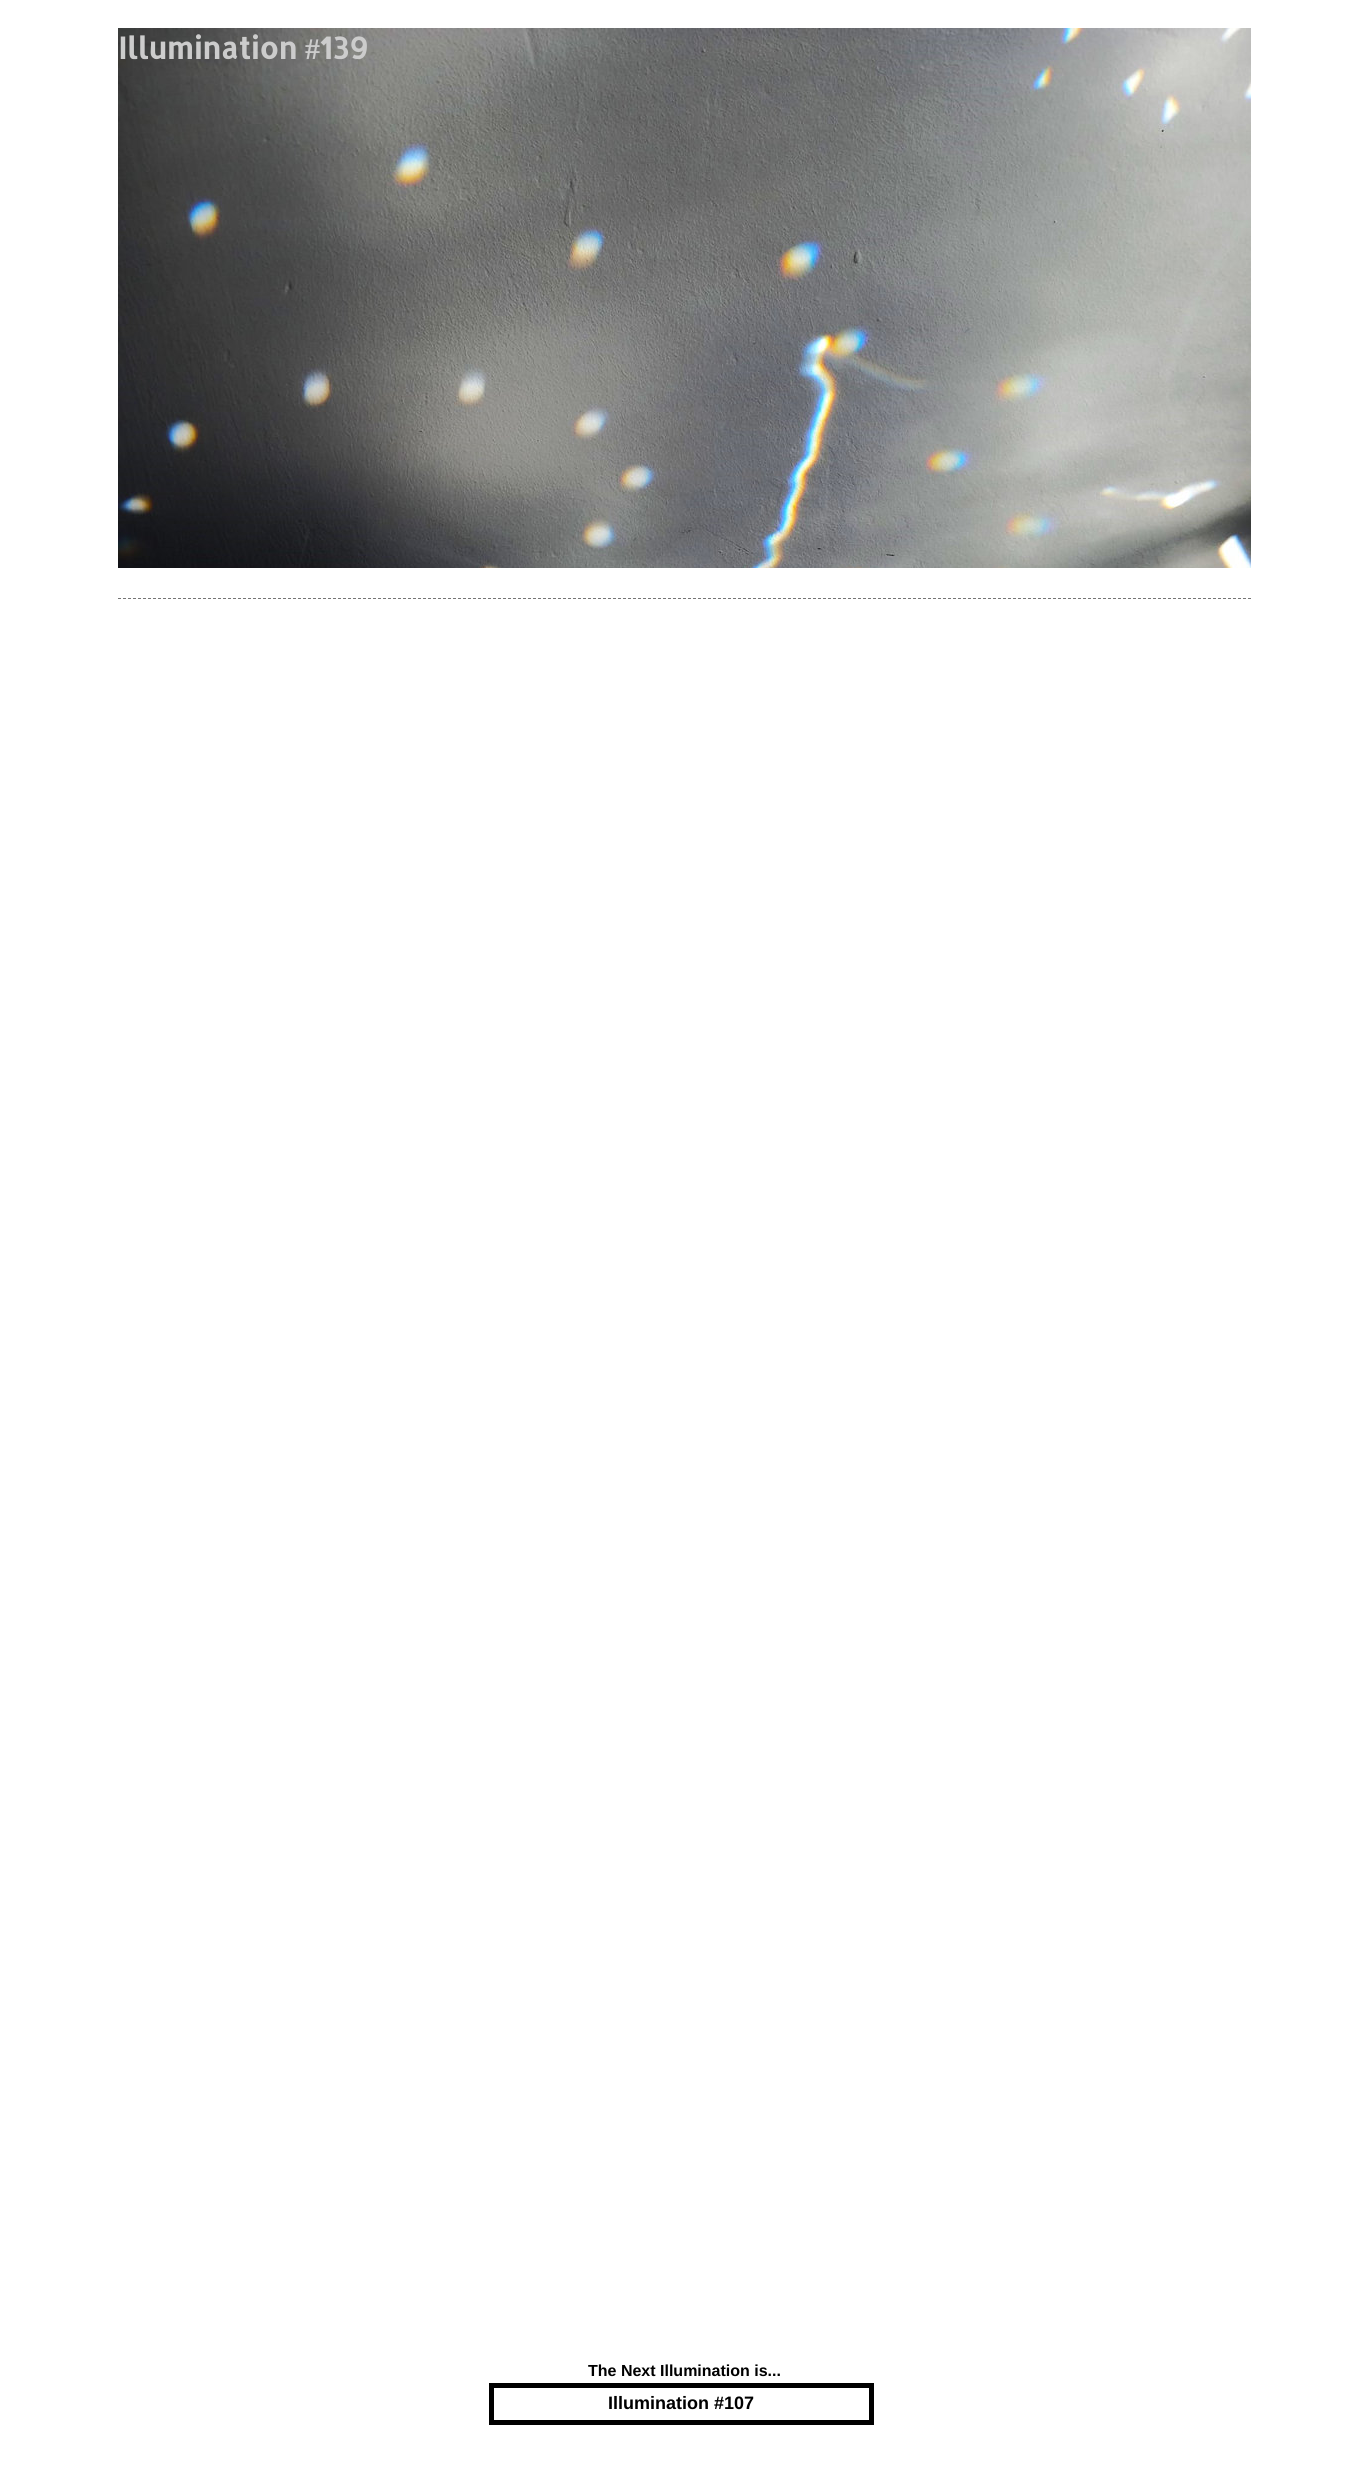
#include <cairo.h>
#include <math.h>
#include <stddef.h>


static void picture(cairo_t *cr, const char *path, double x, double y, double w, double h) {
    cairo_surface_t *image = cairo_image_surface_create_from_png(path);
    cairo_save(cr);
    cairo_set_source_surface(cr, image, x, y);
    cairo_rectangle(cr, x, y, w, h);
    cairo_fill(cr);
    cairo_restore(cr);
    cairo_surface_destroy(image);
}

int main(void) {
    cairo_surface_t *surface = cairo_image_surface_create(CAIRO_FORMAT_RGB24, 1368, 2484);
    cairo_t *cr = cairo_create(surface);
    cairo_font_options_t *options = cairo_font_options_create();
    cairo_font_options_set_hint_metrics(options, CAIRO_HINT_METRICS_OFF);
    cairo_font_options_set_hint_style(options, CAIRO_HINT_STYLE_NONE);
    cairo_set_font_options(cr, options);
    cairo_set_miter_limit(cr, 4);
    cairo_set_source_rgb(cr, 1, 1, 1);
    cairo_paint(cr);
    picture(cr, "img1.png", 118, 28, 1133, 540);
    cairo_select_font_face(cr, "Allerta", CAIRO_FONT_SLANT_NORMAL, CAIRO_FONT_WEIGHT_BOLD);
    cairo_set_font_size(cr, 30);
    cairo_set_source_rgb(cr, 0.8, 0.8, 0.8);
    cairo_move_to(cr, 118, 59);
    cairo_show_text(cr, "Illumination");
    cairo_select_font_face(cr, "Liberation Serif", CAIRO_FONT_SLANT_NORMAL, CAIRO_FONT_WEIGHT_BOLD);
    cairo_move_to(cr, 305, 59);
    cairo_show_text(cr, "#");
    cairo_select_font_face(cr, "Allerta", CAIRO_FONT_SLANT_NORMAL, CAIRO_FONT_WEIGHT_BOLD);
    cairo_move_to(cr, 320, 59);
    cairo_show_text(cr, "139");
    cairo_new_path(cr);
    cairo_move_to(cr, 118, 598.5);
    cairo_line_to(cr, 1251, 598.5);
    cairo_set_source_rgb(cr, 0.459, 0.459, 0.459);
    cairo_set_line_width(cr, 1);
    cairo_set_dash(cr, (double[]){3, 2}, 2, 0);
    cairo_stroke(cr);
    cairo_select_font_face(cr, "Liberation Sans", CAIRO_FONT_SLANT_NORMAL, CAIRO_FONT_WEIGHT_BOLD);
    cairo_set_font_size(cr, 16);
    cairo_set_source_rgb(cr, 0, 0, 0);
    cairo_move_to(cr, 588, 2376);
    cairo_show_text(cr, "The Next Illumination is...");
    cairo_rectangle(cr, 491.5, 2385.5, 380, 37);
    cairo_set_line_width(cr, 5);
    cairo_set_dash(cr, NULL, 0, 0);
    cairo_stroke(cr);
    cairo_set_font_size(cr, 18);
    cairo_move_to(cr, 608, 2409);
    cairo_show_text(cr, "Illumination #107");
    cairo_surface_write_to_png(surface, "page.png");
    cairo_font_options_destroy(options);
    cairo_destroy(cr);
    cairo_surface_destroy(surface);
    return 0;
}
